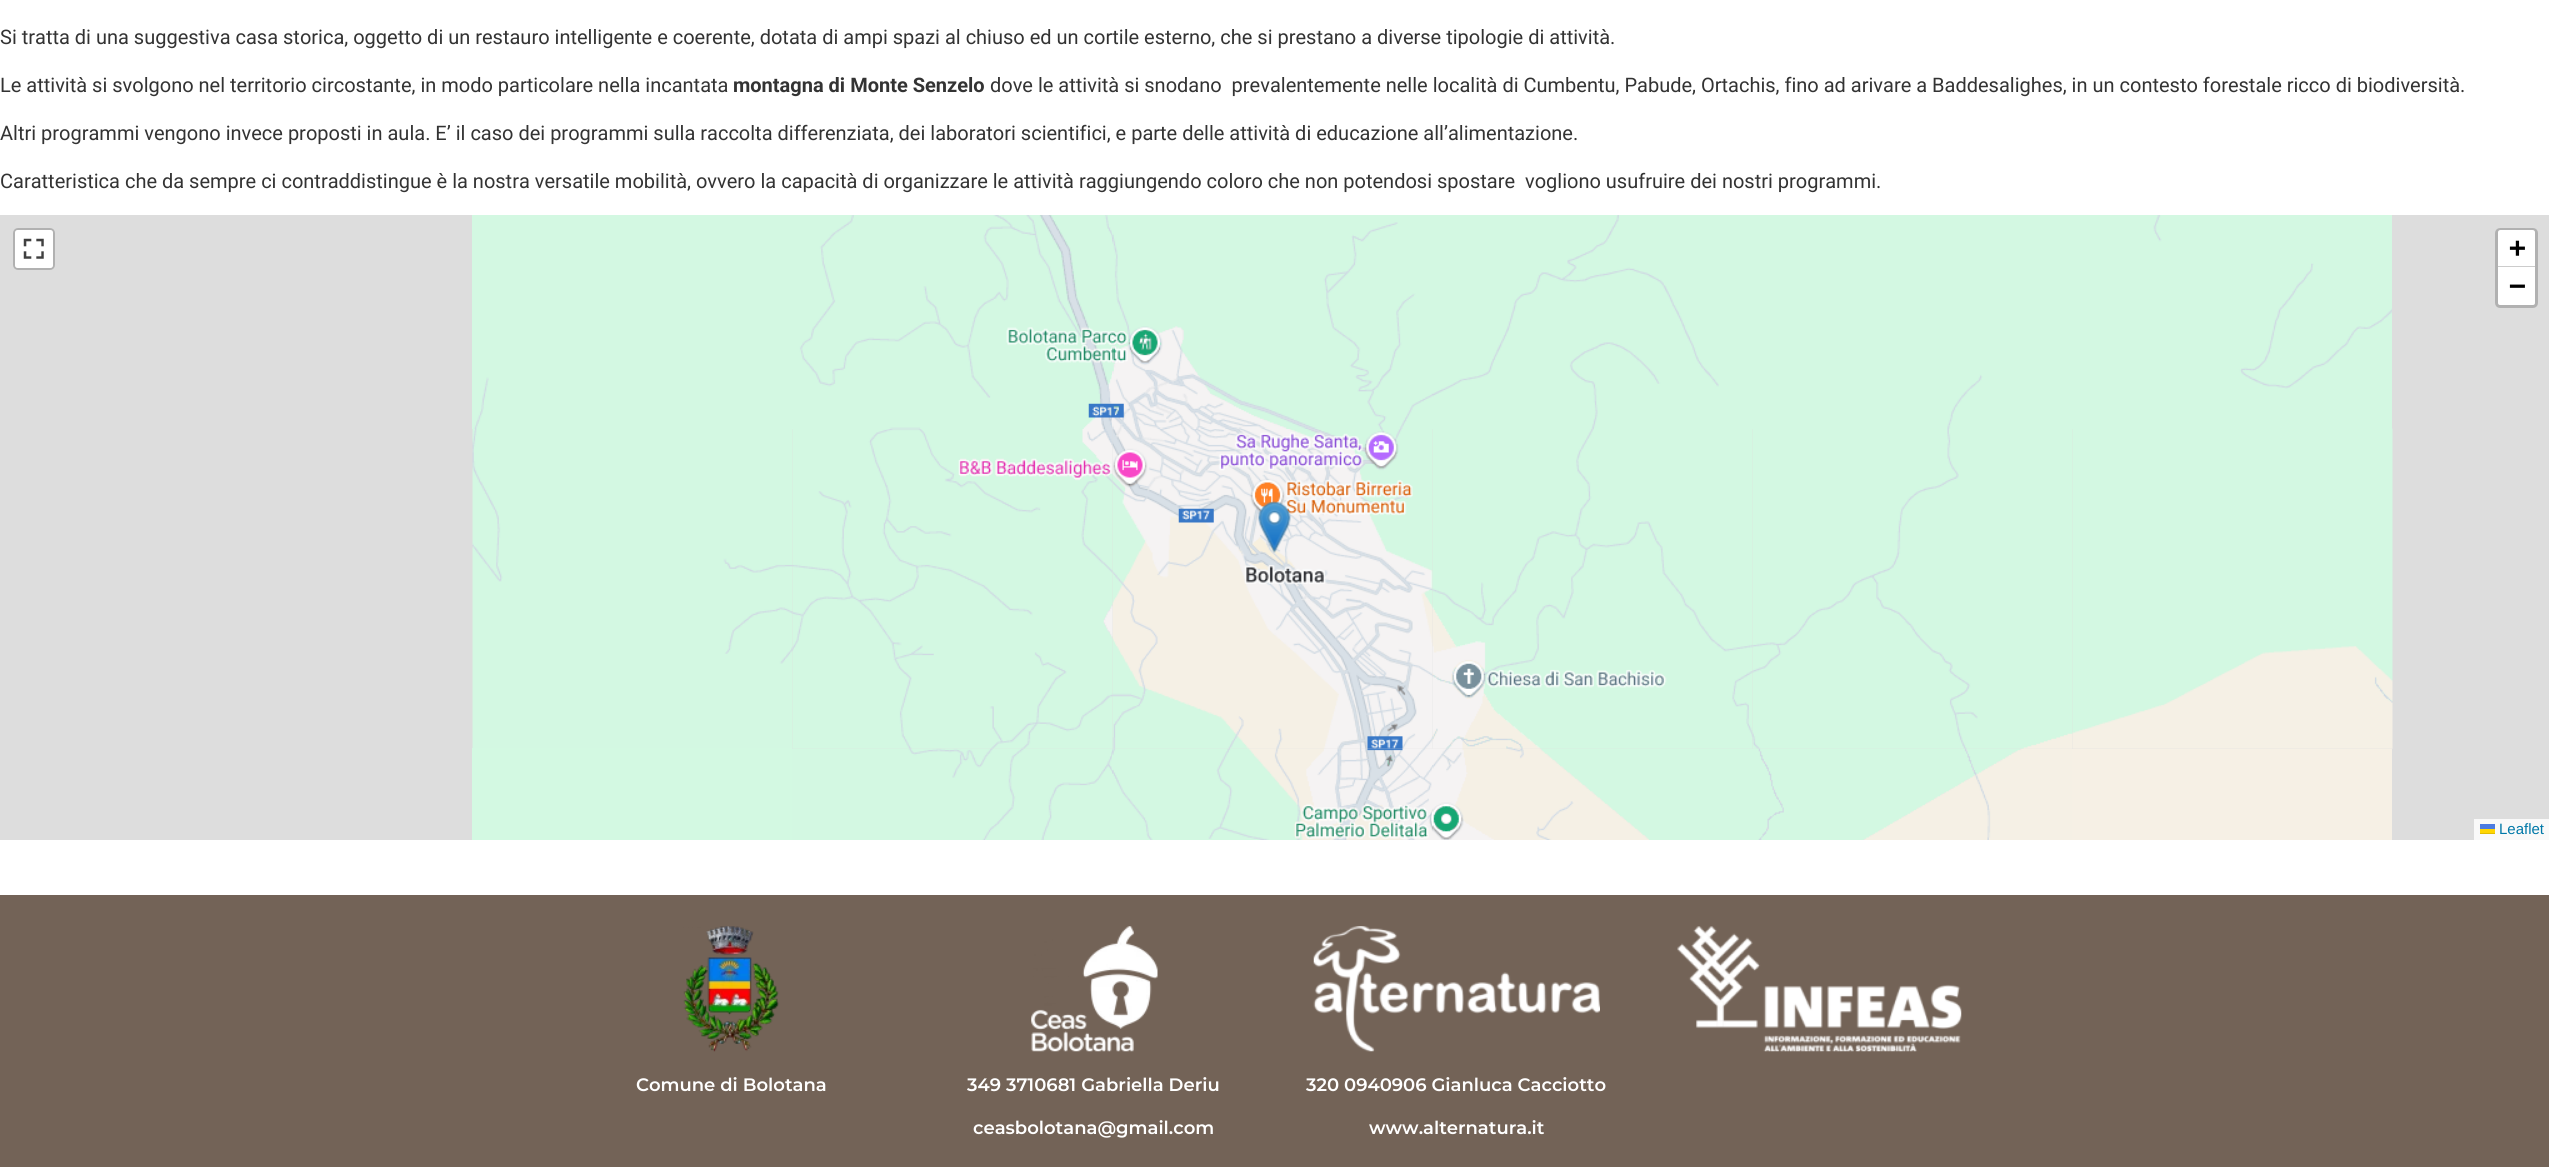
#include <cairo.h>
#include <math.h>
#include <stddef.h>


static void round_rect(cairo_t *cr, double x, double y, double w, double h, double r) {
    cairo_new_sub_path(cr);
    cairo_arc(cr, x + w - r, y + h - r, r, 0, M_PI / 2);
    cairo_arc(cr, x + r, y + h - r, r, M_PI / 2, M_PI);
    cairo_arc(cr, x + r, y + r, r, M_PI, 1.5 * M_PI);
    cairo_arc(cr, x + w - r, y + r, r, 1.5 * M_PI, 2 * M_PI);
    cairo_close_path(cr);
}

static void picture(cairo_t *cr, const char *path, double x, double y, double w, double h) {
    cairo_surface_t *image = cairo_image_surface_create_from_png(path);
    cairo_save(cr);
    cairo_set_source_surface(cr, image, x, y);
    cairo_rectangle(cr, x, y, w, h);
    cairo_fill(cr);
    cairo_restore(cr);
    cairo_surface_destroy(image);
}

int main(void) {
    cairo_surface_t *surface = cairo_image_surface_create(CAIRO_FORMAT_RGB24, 2549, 1167);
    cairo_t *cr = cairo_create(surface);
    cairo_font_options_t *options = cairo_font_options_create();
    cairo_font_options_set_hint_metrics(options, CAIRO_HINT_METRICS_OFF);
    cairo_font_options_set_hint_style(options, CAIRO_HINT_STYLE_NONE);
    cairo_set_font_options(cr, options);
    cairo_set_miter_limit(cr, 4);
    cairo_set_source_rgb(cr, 1, 1, 1);
    cairo_paint(cr);
    cairo_select_font_face(cr, "Roboto", CAIRO_FONT_SLANT_NORMAL, CAIRO_FONT_WEIGHT_NORMAL);
    cairo_set_font_size(cr, 20);
    cairo_set_source_rgb(cr, 0.2, 0.2, 0.2);
    cairo_move_to(cr, 0, 44);
    cairo_show_text(cr, "Si tratta di una suggestiva casa storica, oggetto di un restauro intelligente e coerente, dotata di ampi spazi al chiuso ed un cortile esterno, che si prestano a diverse tipologie di attività.");
    cairo_move_to(cr, 0, 92);
    cairo_show_text(cr, "Le attività si svolgono nel territorio circostante, in modo particolare nella incantata");
    cairo_select_font_face(cr, "Roboto", CAIRO_FONT_SLANT_NORMAL, CAIRO_FONT_WEIGHT_BOLD);
    cairo_move_to(cr, 733, 92);
    cairo_show_text(cr, "montagna di Monte Senzelo");
    cairo_select_font_face(cr, "Roboto", CAIRO_FONT_SLANT_NORMAL, CAIRO_FONT_WEIGHT_NORMAL);
    cairo_move_to(cr, 990, 92);
    cairo_show_text(cr, "dove le attività si snodano  prevalentemente nelle località di Cumbentu, Pabude, Ortachis, fino ad arivare a Baddesalighes, in un contesto forestale ricco di biodiversità.");
    cairo_move_to(cr, 0, 140);
    cairo_show_text(cr, "Altri programmi vengono invece proposti in aula. E’ il caso dei programmi sulla raccolta differenziata, dei laboratori scientifici, e parte delle attività di educazione all’alimentazione.");
    cairo_move_to(cr, 0, 188);
    cairo_show_text(cr, "Caratteristica che da sempre ci contraddistingue è la nostra versatile mobilità, ovvero la capacità di organizzare le attività raggiungendo coloro che non potendosi spostare  vogliono usufruire dei nostri programmi.");
    cairo_set_source_rgb(cr, 0.867, 0.867, 0.867);
    cairo_rectangle(cr, 0, 215, 2549, 625);
    cairo_fill(cr);
    picture(cr, "img3.png", 1112, 215, 320, 214);
    picture(cr, "img9.png", 1112, 429, 321, 320);
    picture(cr, "img8.png", 792, 428, 321, 321);
    picture(cr, "img2.png", 792, 215, 320, 214);
    picture(cr, "img13.png", 792, 748, 320, 92);
    picture(cr, "img7.png", 472, 428, 321, 321);
    picture(cr, "img1.png", 472, 215, 320, 214);
    picture(cr, "img4.png", 1432, 215, 320, 214);
    picture(cr, "img5.png", 1752, 215, 320, 214);
    picture(cr, "img10.png", 1432, 429, 321, 320);
    picture(cr, "img11.png", 1752, 429, 321, 320);
    picture(cr, "img12.png", 2072, 428, 321, 321);
    picture(cr, "img6.png", 2072, 215, 320, 214);
    cairo_set_source_rgb(cr, 0.827, 0.973, 0.886);
    cairo_rectangle(cr, 472, 748, 320, 92);
    cairo_fill(cr);
    picture(cr, "img14.png", 1112, 748, 320, 92);
    picture(cr, "img15.png", 1432, 748, 320, 92);
    picture(cr, "img16.png", 1752, 748, 320, 92);
    cairo_set_source_rgb(cr, 0.961, 0.941, 0.898);
    cairo_rectangle(cr, 2072, 749, 320, 91);
    cairo_fill(cr);
    picture(cr, "img17.png", 1258, 501, 33, 52);
    round_rect(cr, 14.5, 229.5, 39, 39, 3.5);
    cairo_set_source_rgb(cr, 0.694, 0.694, 0.694);
    cairo_set_line_width(cr, 3);
    cairo_stroke(cr);
    cairo_set_source_rgb(cr, 1, 1, 1);
    round_rect(cr, 15, 230, 38, 38, 2.5);
    cairo_fill(cr);
    picture(cr, "img18.png", 23, 238, 21, 21);
    round_rect(cr, 2496.5, 229.5, 40, 77, 3.5);
    cairo_set_source_rgb(cr, 0.694, 0.694, 0.694);
    cairo_stroke(cr);
    cairo_set_source_rgb(cr, 1, 1, 1);
    cairo_new_path(cr);
    cairo_move_to(cr, 2500.5, 230);
    cairo_line_to(cr, 2532.5, 230);
    cairo_curve_to(cr, 2534, 230, 2535, 231, 2535, 232.5);
    cairo_line_to(cr, 2535, 268);
    cairo_line_to(cr, 2498, 268);
    cairo_line_to(cr, 2498, 232.5);
    cairo_curve_to(cr, 2498, 231, 2499, 230, 2500.5, 230);
    cairo_close_path(cr);
    cairo_fill(cr);
    cairo_set_source_rgb(cr, 0.8, 0.8, 0.8);
    cairo_rectangle(cr, 2498, 266, 37, 1);
    cairo_fill(cr);
    cairo_select_font_face(cr, "DejaVu Sans Mono", CAIRO_FONT_SLANT_NORMAL, CAIRO_FONT_WEIGHT_BOLD);
    cairo_set_font_size(cr, 28);
    cairo_set_source_rgb(cr, 0, 0, 0);
    cairo_move_to(cr, 2509, 257);
    cairo_show_text(cr, "+");
    cairo_set_source_rgb(cr, 1, 1, 1);
    cairo_new_path(cr);
    cairo_move_to(cr, 2498, 268);
    cairo_line_to(cr, 2535, 268);
    cairo_line_to(cr, 2535, 302.5);
    cairo_curve_to(cr, 2535, 304, 2534, 305, 2532.5, 305);
    cairo_line_to(cr, 2500.5, 305);
    cairo_curve_to(cr, 2499, 305, 2498, 304, 2498, 302.5);
    cairo_close_path(cr);
    cairo_fill(cr);
    cairo_set_source_rgb(cr, 0, 0, 0);
    cairo_move_to(cr, 2509, 295);
    cairo_show_text(cr, "−");
    cairo_set_source_rgb(cr, 0.973, 0.973, 0.973);
    cairo_rectangle(cr, 2474, 819, 75, 21);
    cairo_fill(cr);
    cairo_select_font_face(cr, "Liberation Sans", CAIRO_FONT_SLANT_NORMAL, CAIRO_FONT_WEIGHT_NORMAL);
    cairo_set_font_size(cr, 15);
    cairo_set_source_rgb(cr, 0, 0.471, 0.659);
    cairo_move_to(cr, 2499, 834);
    cairo_show_text(cr, "Leaflet");
    cairo_set_source_rgb(cr, 0.298, 0.482, 0.882);
    cairo_rectangle(cr, 2480, 824, 15, 5);
    cairo_fill(cr);
    cairo_set_source_rgb(cr, 1, 0.835, 0);
    cairo_rectangle(cr, 2480, 829, 15, 4);
    cairo_fill(cr);
    cairo_set_source_rgb(cr, 0.878, 0.737, 0);
    cairo_rectangle(cr, 2480, 833, 15, 1);
    cairo_fill(cr);
    cairo_set_source_rgb(cr, 0.451, 0.388, 0.341);
    cairo_rectangle(cr, 0, 895, 2549, 272);
    cairo_fill(cr);
    picture(cr, "img19.png", 1677, 926, 285, 126);
    picture(cr, "img20.png", 683, 926, 96, 126);
    cairo_select_font_face(cr, "Montserrat SemiBold", CAIRO_FONT_SLANT_NORMAL, CAIRO_FONT_WEIGHT_NORMAL);
    cairo_set_font_size(cr, 18);
    cairo_set_source_rgb(cr, 1, 1, 1);
    cairo_move_to(cr, 636, 1091);
    cairo_show_text(cr, "Comune di Bolotana");
    picture(cr, "img21.png", 1031, 926, 127, 126);
    cairo_move_to(cr, 967, 1091);
    cairo_show_text(cr, "349 3710681 Gabriella Deriu");
    cairo_move_to(cr, 973, 1134);
    cairo_show_text(cr, "ceasbolotana@gmail.com");
    picture(cr, "img22.png", 1313, 926, 287, 126);
    cairo_move_to(cr, 1306, 1091);
    cairo_show_text(cr, "320 0940906 Gianluca Cacciotto");
    cairo_move_to(cr, 1369, 1134);
    cairo_show_text(cr, "www.alternatura.it");
    cairo_surface_write_to_png(surface, "page.png");
    cairo_font_options_destroy(options);
    cairo_destroy(cr);
    cairo_surface_destroy(surface);
    return 0;
}
